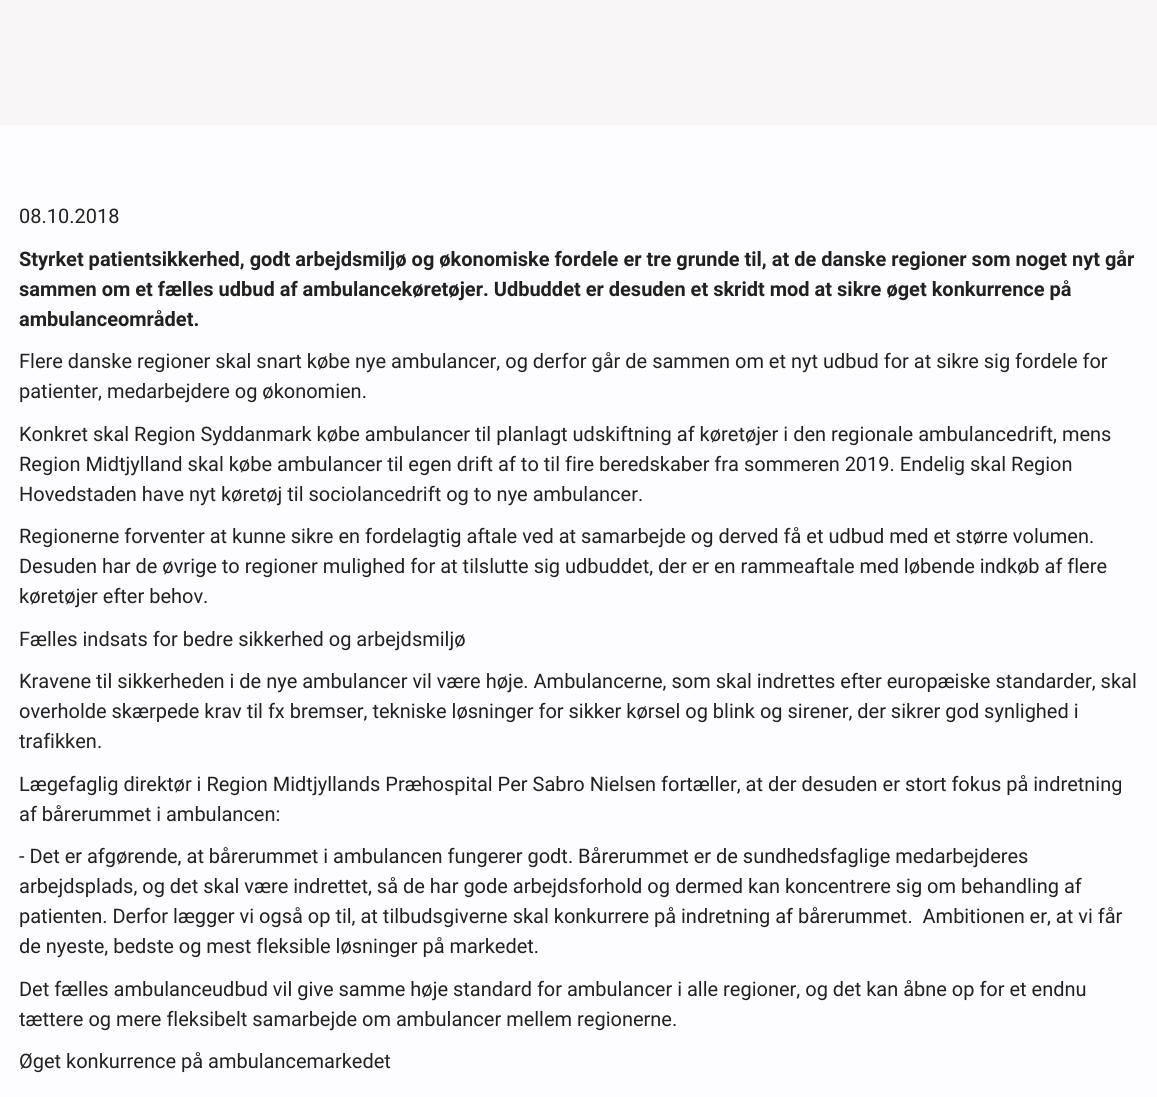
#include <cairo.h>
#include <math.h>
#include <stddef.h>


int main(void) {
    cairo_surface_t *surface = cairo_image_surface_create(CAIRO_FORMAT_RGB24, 1157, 1097);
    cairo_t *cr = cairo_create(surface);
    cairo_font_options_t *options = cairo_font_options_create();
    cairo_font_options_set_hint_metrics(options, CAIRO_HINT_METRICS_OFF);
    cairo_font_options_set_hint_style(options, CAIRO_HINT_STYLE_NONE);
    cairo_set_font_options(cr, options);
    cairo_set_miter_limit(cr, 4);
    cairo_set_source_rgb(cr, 0.992, 0.992, 1);
    cairo_paint(cr);
    cairo_set_source_rgb(cr, 0.976, 0.961, 0.965);
    cairo_rectangle(cr, 0, 0, 1157, 125);
    cairo_fill(cr);
    cairo_select_font_face(cr, "Roboto", CAIRO_FONT_SLANT_NORMAL, CAIRO_FONT_WEIGHT_NORMAL);
    cairo_set_font_size(cr, 20);
    cairo_set_source_rgb(cr, 0.129, 0.129, 0.129);
    cairo_move_to(cr, 19, 223);
    cairo_show_text(cr, "08.10.2018");
    cairo_select_font_face(cr, "Roboto", CAIRO_FONT_SLANT_NORMAL, CAIRO_FONT_WEIGHT_BOLD);
    cairo_move_to(cr, 19, 266);
    cairo_show_text(cr, "Styrket patientsikkerhed, godt arbejdsmiljø og økonomiske fordele er tre grunde til, at de danske regioner som noget nyt går");
    cairo_move_to(cr, 19, 296);
    cairo_show_text(cr, "sammen om et fælles udbud af ambulancekøretøjer. Udbuddet er desuden et skridt mod at sikre øget konkurrence på");
    cairo_move_to(cr, 19, 326);
    cairo_show_text(cr, "ambulanceområdet.");
    cairo_select_font_face(cr, "Roboto", CAIRO_FONT_SLANT_NORMAL, CAIRO_FONT_WEIGHT_NORMAL);
    cairo_move_to(cr, 19, 368);
    cairo_show_text(cr, "Flere danske regioner skal snart købe nye ambulancer, og derfor går de sammen om et nyt udbud for at sikre sig fordele for");
    cairo_move_to(cr, 19, 398);
    cairo_show_text(cr, "patienter, medarbejdere og økonomien.");
    cairo_move_to(cr, 19, 441);
    cairo_show_text(cr, "Konkret skal Region Syddanmark købe ambulancer til planlagt udskiftning af køretøjer i den regionale ambulancedrift, mens");
    cairo_move_to(cr, 19, 471);
    cairo_show_text(cr, "Region Midtjylland skal købe ambulancer til egen drift af to til fire beredskaber fra sommeren 2019. Endelig skal Region");
    cairo_move_to(cr, 19, 501);
    cairo_show_text(cr, "Hovedstaden have nyt køretøj til sociolancedrift og to nye ambulancer.");
    cairo_move_to(cr, 19, 543);
    cairo_show_text(cr, "Regionerne forventer at kunne sikre en fordelagtig aftale ved at samarbejde og derved få et udbud med et større volumen.");
    cairo_move_to(cr, 19, 573);
    cairo_show_text(cr, "Desuden har de øvrige to regioner mulighed for at tilslutte sig udbuddet, der er en rammeaftale med løbende indkøb af flere");
    cairo_move_to(cr, 19, 603);
    cairo_show_text(cr, "køretøjer efter behov.");
    cairo_move_to(cr, 19, 646);
    cairo_show_text(cr, "Fælles indsats for bedre sikkerhed og arbejdsmiljø");
    cairo_move_to(cr, 19, 688);
    cairo_show_text(cr, "Kravene til sikkerheden i de nye ambulancer vil være høje. Ambulancerne, som skal indrettes efter europæiske standarder, skal");
    cairo_move_to(cr, 19, 718);
    cairo_show_text(cr, "overholde skærpede krav til fx bremser, tekniske løsninger for sikker kørsel og blink og sirener, der sikrer god synlighed i");
    cairo_move_to(cr, 19, 748);
    cairo_show_text(cr, "trafikken.");
    cairo_move_to(cr, 19, 791);
    cairo_show_text(cr, "Lægefaglig direktør i Region Midtjyllands Præhospital Per Sabro Nielsen fortæller, at der desuden er stort fokus på indretning");
    cairo_move_to(cr, 19, 821);
    cairo_show_text(cr, "af bårerummet i ambulancen:");
    cairo_move_to(cr, 19, 863);
    cairo_show_text(cr, "- Det er afgørende, at bårerummet i ambulancen fungerer godt. Bårerummet er de sundhedsfaglige medarbejderes");
    cairo_move_to(cr, 19, 893);
    cairo_show_text(cr, "arbejdsplads, og det skal være indrettet, så de har gode arbejdsforhold og dermed kan koncentrere sig om behandling af");
    cairo_move_to(cr, 19, 923);
    cairo_show_text(cr, "patienten. Derfor lægger vi også op til, at tilbudsgiverne skal konkurrere på indretning af bårerummet.  Ambitionen er, at vi får");
    cairo_move_to(cr, 19, 953);
    cairo_show_text(cr, "de nyeste, bedste og mest fleksible løsninger på markedet.");
    cairo_move_to(cr, 19, 996);
    cairo_show_text(cr, "Det fælles ambulanceudbud vil give samme høje standard for ambulancer i alle regioner, og det kan åbne op for et endnu");
    cairo_move_to(cr, 19, 1026);
    cairo_show_text(cr, "tættere og mere fleksibelt samarbejde om ambulancer mellem regionerne.");
    cairo_move_to(cr, 19, 1068);
    cairo_show_text(cr, "Øget konkurrence på ambulancemarkedet");
    cairo_surface_write_to_png(surface, "page.png");
    cairo_font_options_destroy(options);
    cairo_destroy(cr);
    cairo_surface_destroy(surface);
    return 0;
}
